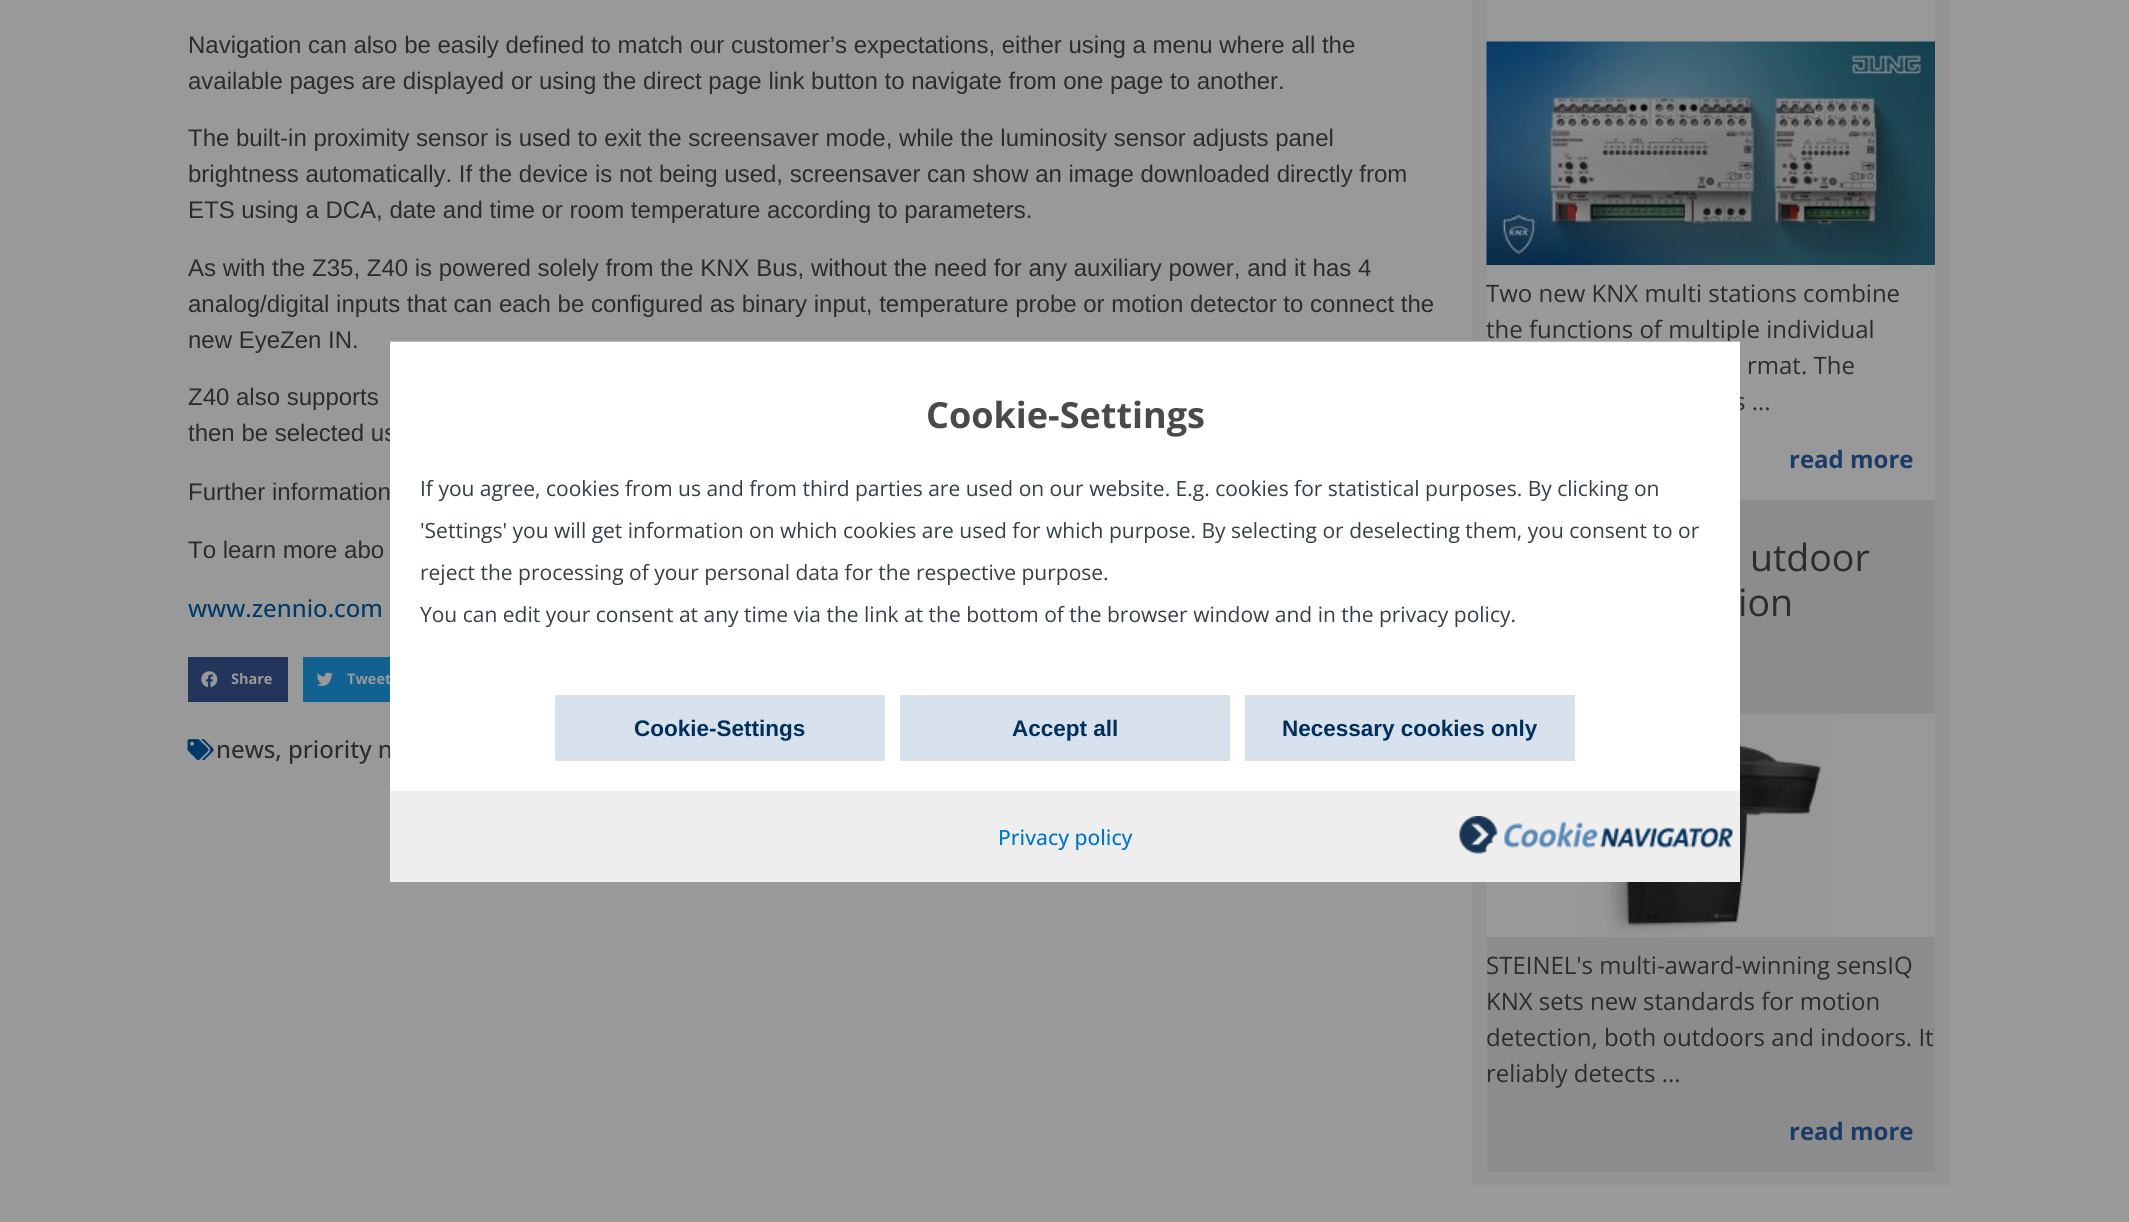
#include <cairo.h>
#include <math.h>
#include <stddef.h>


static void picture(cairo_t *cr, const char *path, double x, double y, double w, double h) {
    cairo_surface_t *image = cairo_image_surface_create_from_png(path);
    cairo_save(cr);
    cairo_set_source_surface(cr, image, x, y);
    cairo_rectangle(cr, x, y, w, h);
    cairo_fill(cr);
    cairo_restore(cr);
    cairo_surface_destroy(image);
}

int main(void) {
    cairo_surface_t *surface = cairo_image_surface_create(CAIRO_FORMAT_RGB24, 2129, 1222);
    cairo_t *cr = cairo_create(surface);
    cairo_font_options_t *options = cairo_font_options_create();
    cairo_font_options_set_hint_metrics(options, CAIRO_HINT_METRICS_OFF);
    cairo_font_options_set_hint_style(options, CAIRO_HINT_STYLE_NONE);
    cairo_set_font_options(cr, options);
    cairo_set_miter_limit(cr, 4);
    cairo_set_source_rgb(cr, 0.6, 0.6, 0.6);
    cairo_paint(cr);
    cairo_select_font_face(cr, "Liberation Sans", CAIRO_FONT_SLANT_NORMAL, CAIRO_FONT_WEIGHT_NORMAL);
    cairo_set_font_size(cr, 24);
    cairo_set_source_rgb(cr, 0.173, 0.173, 0.173);
    cairo_move_to(cr, 188, 53);
    cairo_show_text(cr, "Navigation can also be easily defined to match our customer’s expectations, either using a menu where all the");
    cairo_move_to(cr, 188, 89);
    cairo_show_text(cr, "available pages are displayed or using the direct page link button to navigate from one page to another.");
    cairo_move_to(cr, 188, 146);
    cairo_show_text(cr, "The built-in proximity sensor is used to exit the screensaver mode, while the luminosity sensor adjusts panel");
    cairo_move_to(cr, 188, 182);
    cairo_show_text(cr, "brightness automatically. If the device is not being used, screensaver can show an image downloaded directly from");
    cairo_move_to(cr, 188, 218);
    cairo_show_text(cr, "ETS using a DCA, date and time or room temperature according to parameters.");
    cairo_move_to(cr, 188, 276);
    cairo_show_text(cr, "As with the Z35, Z40 is powered solely from the KNX Bus, without the need for any auxiliary power, and it has 4");
    cairo_move_to(cr, 188, 312);
    cairo_show_text(cr, "analog/digital inputs that can each be configured as binary input, temperature probe or motion detector to connect the");
    cairo_move_to(cr, 188, 348);
    cairo_show_text(cr, "new EyeZen IN.");
    cairo_move_to(cr, 188, 405);
    cairo_show_text(cr, "Z40 also supports");
    cairo_move_to(cr, 188, 441);
    cairo_show_text(cr, "then be selected us");
    cairo_move_to(cr, 188, 500);
    cairo_show_text(cr, "Further information");
    cairo_move_to(cr, 188, 558);
    cairo_show_text(cr, "To learn more abo");
    cairo_select_font_face(cr, "Open Sans Medium", CAIRO_FONT_SLANT_NORMAL, CAIRO_FONT_WEIGHT_NORMAL);
    cairo_set_source_rgb(cr, 0, 0.224, 0.404);
    cairo_move_to(cr, 188, 617);
    cairo_show_text(cr, "www.zennio.com");
    cairo_set_source_rgb(cr, 0.137, 0.208, 0.357);
    cairo_rectangle(cr, 188, 657, 100, 45);
    cairo_fill(cr);
    picture(cr, "img1.png", 201, 671, 17, 17);
    cairo_select_font_face(cr, "Open Sans", CAIRO_FONT_SLANT_NORMAL, CAIRO_FONT_WEIGHT_BOLD);
    cairo_set_font_size(cr, 14.5);
    cairo_set_source_rgb(cr, 0.6, 0.6, 0.6);
    cairo_move_to(cr, 231, 684);
    cairo_show_text(cr, "Share");
    cairo_set_source_rgb(cr, 0.067, 0.38, 0.569);
    cairo_rectangle(cr, 303, 657, 87, 45);
    cairo_fill(cr);
    picture(cr, "img2.png", 316, 672, 17, 14);
    cairo_set_source_rgb(cr, 0.6, 0.6, 0.6);
    cairo_move_to(cr, 347, 684);
    cairo_show_text(cr, "Tweet");
    picture(cr, "img3.png", 187, 739, 27, 22);
    cairo_select_font_face(cr, "Open Sans Medium", CAIRO_FONT_SLANT_NORMAL, CAIRO_FONT_WEIGHT_NORMAL);
    cairo_set_font_size(cr, 24);
    cairo_set_source_rgb(cr, 0.173, 0.173, 0.173);
    cairo_move_to(cr, 216, 758);
    cairo_show_text(cr, "news, priority n");
    cairo_set_source_rgb(cr, 0.58, 0.58, 0.58);
    cairo_rectangle(cr, 1472, 0, 478, 1185);
    cairo_fill(cr);
    cairo_set_source_rgb(cr, 0.6, 0.6, 0.6);
    cairo_rectangle(cr, 1487, 0, 448, 500);
    cairo_fill(cr);
    picture(cr, "img4.png", 1486, 41, 449, 224);
    cairo_select_font_face(cr, "Open Sans", CAIRO_FONT_SLANT_NORMAL, CAIRO_FONT_WEIGHT_NORMAL);
    cairo_set_source_rgb(cr, 0.173, 0.173, 0.173);
    cairo_move_to(cr, 1486, 302);
    cairo_show_text(cr, "Two new KNX multi stations combine");
    cairo_move_to(cr, 1486, 338);
    cairo_show_text(cr, "the functions of multiple individual");
    cairo_move_to(cr, 1747, 374);
    cairo_show_text(cr, "rmat. The");
    cairo_move_to(cr, 1734, 410);
    cairo_show_text(cr, "s ...");
    cairo_select_font_face(cr, "Open Sans", CAIRO_FONT_SLANT_NORMAL, CAIRO_FONT_WEIGHT_BOLD);
    cairo_set_source_rgb(cr, 0.102, 0.231, 0.408);
    cairo_move_to(cr, 1789, 468);
    cairo_show_text(cr, "read more");
    cairo_set_source_rgb(cr, 0.549, 0.549, 0.549);
    cairo_rectangle(cr, 1487, 500, 448, 672);
    cairo_fill(cr);
    cairo_select_font_face(cr, "Open Sans", CAIRO_FONT_SLANT_NORMAL, CAIRO_FONT_WEIGHT_NORMAL);
    cairo_set_font_size(cr, 37.5);
    cairo_set_source_rgb(cr, 0.173, 0.173, 0.173);
    cairo_move_to(cr, 1750, 571);
    cairo_show_text(cr, "utdoor");
    cairo_move_to(cr, 1738, 616);
    cairo_show_text(cr, "ion");
    picture(cr, "img5.png", 1486, 713, 449, 224);
    cairo_set_font_size(cr, 24);
    cairo_move_to(cr, 1486, 974);
    cairo_show_text(cr, "STEINEL's multi-award-winning sensIQ");
    cairo_move_to(cr, 1486, 1010);
    cairo_show_text(cr, "KNX sets new standards for motion");
    cairo_move_to(cr, 1486, 1046);
    cairo_show_text(cr, "detection, both outdoors and indoors. It");
    cairo_move_to(cr, 1486, 1082);
    cairo_show_text(cr, "reliably detects ...");
    cairo_select_font_face(cr, "Open Sans", CAIRO_FONT_SLANT_NORMAL, CAIRO_FONT_WEIGHT_BOLD);
    cairo_set_source_rgb(cr, 0.102, 0.231, 0.408);
    cairo_move_to(cr, 1789, 1140);
    cairo_show_text(cr, "read more");
    cairo_set_source_rgb(cr, 0.733, 0.733, 0.733);
    cairo_rectangle(cr, 390, 341, 1350, 1);
    cairo_fill(cr);
    cairo_set_source_rgb(cr, 1, 1, 1);
    cairo_rectangle(cr, 390, 342, 1350, 449);
    cairo_fill(cr);
    cairo_set_font_size(cr, 36);
    cairo_set_source_rgb(cr, 0.29, 0.29, 0.29);
    cairo_move_to(cr, 926, 428);
    cairo_show_text(cr, "Cookie-Settings");
    cairo_select_font_face(cr, "Open Sans", CAIRO_FONT_SLANT_NORMAL, CAIRO_FONT_WEIGHT_NORMAL);
    cairo_set_font_size(cr, 21);
    cairo_set_source_rgb(cr, 0.2, 0.251, 0.275);
    cairo_move_to(cr, 420, 496);
    cairo_show_text(cr, "If you agree, cookies from us and from third parties are used on our website. E.g. cookies for statistical purposes. By clicking on");
    cairo_move_to(cr, 420, 538);
    cairo_show_text(cr, "'Settings' you will get information on which cookies are used for which purpose. By selecting or deselecting them, you consent to or");
    cairo_move_to(cr, 420, 580);
    cairo_show_text(cr, "reject the processing of your personal data for the respective purpose.");
    cairo_move_to(cr, 420, 622);
    cairo_show_text(cr, "You can edit your consent at any time via the link at the bottom of the browser window and in the privacy policy.");
    cairo_set_source_rgb(cr, 0.839, 0.882, 0.922);
    cairo_rectangle(cr, 555, 695, 330, 66);
    cairo_fill(cr);
    cairo_select_font_face(cr, "Liberation Sans", CAIRO_FONT_SLANT_NORMAL, CAIRO_FONT_WEIGHT_BOLD);
    cairo_set_font_size(cr, 22.5);
    cairo_set_source_rgb(cr, 0, 0.184, 0.365);
    cairo_move_to(cr, 634, 736);
    cairo_show_text(cr, "Cookie-Settings");
    cairo_set_source_rgb(cr, 0.839, 0.882, 0.922);
    cairo_rectangle(cr, 900, 695, 330, 66);
    cairo_fill(cr);
    cairo_set_source_rgb(cr, 0, 0.184, 0.365);
    cairo_move_to(cr, 1012, 736);
    cairo_show_text(cr, "Accept all");
    cairo_set_source_rgb(cr, 0.839, 0.882, 0.922);
    cairo_rectangle(cr, 1245, 695, 330, 66);
    cairo_fill(cr);
    cairo_set_source_rgb(cr, 0, 0.184, 0.365);
    cairo_move_to(cr, 1282, 736);
    cairo_show_text(cr, "Necessary cookies only");
    cairo_set_source_rgb(cr, 0.933, 0.933, 0.933);
    cairo_rectangle(cr, 390, 791, 1350, 91);
    cairo_fill(cr);
    cairo_select_font_face(cr, "Open Sans Medium", CAIRO_FONT_SLANT_NORMAL, CAIRO_FONT_WEIGHT_NORMAL);
    cairo_set_font_size(cr, 21);
    cairo_set_source_rgb(cr, 0, 0.467, 0.784);
    cairo_move_to(cr, 998, 845);
    cairo_show_text(cr, "Privacy policy");
    picture(cr, "img6.png", 1459, 816, 274, 38);
    cairo_surface_write_to_png(surface, "page.png");
    cairo_font_options_destroy(options);
    cairo_destroy(cr);
    cairo_surface_destroy(surface);
    return 0;
}
